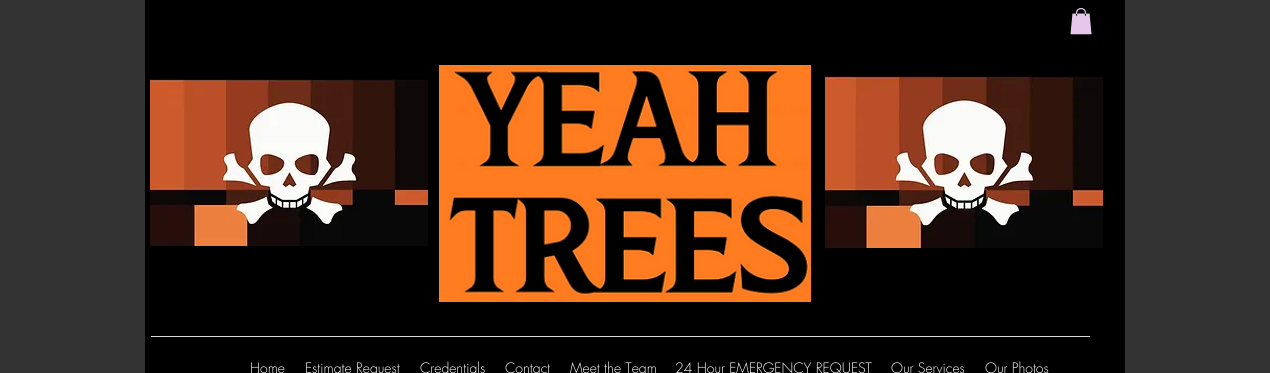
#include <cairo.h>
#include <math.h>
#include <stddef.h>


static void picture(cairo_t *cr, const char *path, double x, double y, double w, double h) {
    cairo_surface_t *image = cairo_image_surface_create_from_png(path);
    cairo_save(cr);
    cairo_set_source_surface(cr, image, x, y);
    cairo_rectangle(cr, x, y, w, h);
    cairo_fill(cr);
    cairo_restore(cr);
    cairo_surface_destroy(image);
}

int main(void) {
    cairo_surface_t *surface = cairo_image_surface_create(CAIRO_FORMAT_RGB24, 1270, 373);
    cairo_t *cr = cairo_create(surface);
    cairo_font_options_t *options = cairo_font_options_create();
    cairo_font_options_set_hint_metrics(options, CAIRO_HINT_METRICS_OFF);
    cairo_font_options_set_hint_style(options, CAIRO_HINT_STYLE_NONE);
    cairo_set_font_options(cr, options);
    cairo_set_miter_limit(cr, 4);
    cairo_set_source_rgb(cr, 0.2, 0.2, 0.2);
    cairo_paint(cr);
    cairo_set_source_rgb(cr, 0, 0, 0);
    cairo_rectangle(cr, 145, 0, 980, 373);
    cairo_fill(cr);
    picture(cr, "img1.png", 1070, 8, 22, 27);
    picture(cr, "img2.png", 150, 79, 278, 167);
    picture(cr, "img3.png", 439, 65, 372, 237);
    picture(cr, "img4.png", 825, 76, 278, 172);
    cairo_set_source_rgb(cr, 0.851, 0.851, 0.851);
    cairo_rectangle(cr, 151, 336, 939, 1);
    cairo_fill(cr);
    cairo_select_font_face(cr, "futura Light", CAIRO_FONT_SLANT_NORMAL, CAIRO_FONT_WEIGHT_NORMAL);
    cairo_set_font_size(cr, 14);
    cairo_set_source_rgb(cr, 1, 1, 1);
    cairo_move_to(cr, 250, 373);
    cairo_show_text(cr, "Home");
    cairo_move_to(cr, 305, 373);
    cairo_show_text(cr, "Estimate Request");
    cairo_move_to(cr, 420, 373);
    cairo_show_text(cr, "Credentials");
    cairo_move_to(cr, 505, 373);
    cairo_show_text(cr, "Contact");
    cairo_move_to(cr, 570, 373);
    cairo_show_text(cr, "Meet the Team");
    cairo_move_to(cr, 675, 373);
    cairo_show_text(cr, "24 Hour EMERGENCY REQUEST");
    cairo_move_to(cr, 891, 373);
    cairo_show_text(cr, "Our Services");
    cairo_move_to(cr, 985, 373);
    cairo_show_text(cr, "Our Photos");
    cairo_surface_write_to_png(surface, "page.png");
    cairo_font_options_destroy(options);
    cairo_destroy(cr);
    cairo_surface_destroy(surface);
    return 0;
}
